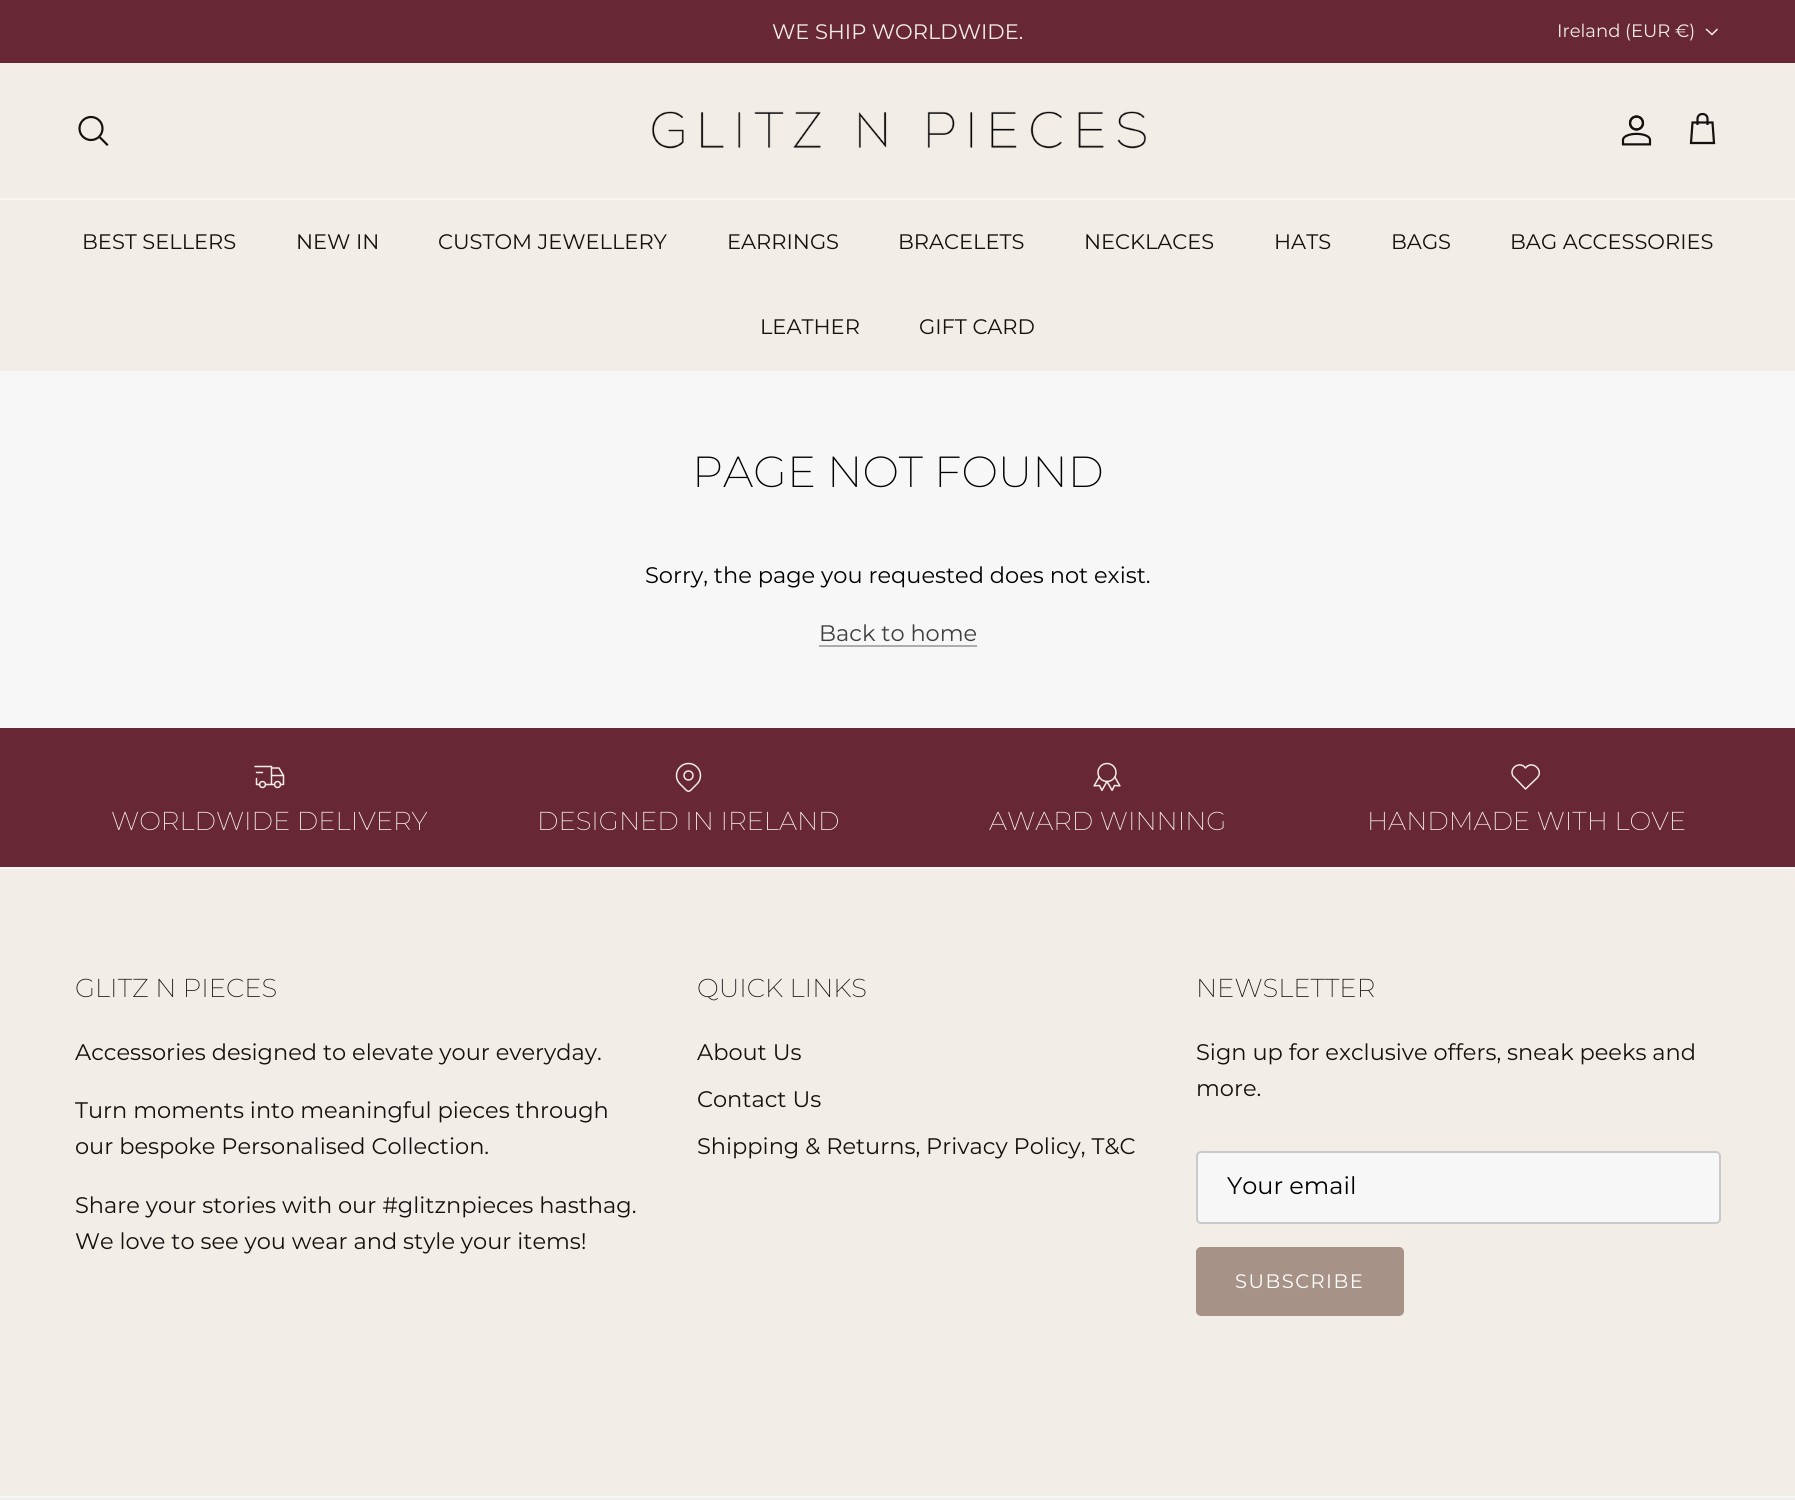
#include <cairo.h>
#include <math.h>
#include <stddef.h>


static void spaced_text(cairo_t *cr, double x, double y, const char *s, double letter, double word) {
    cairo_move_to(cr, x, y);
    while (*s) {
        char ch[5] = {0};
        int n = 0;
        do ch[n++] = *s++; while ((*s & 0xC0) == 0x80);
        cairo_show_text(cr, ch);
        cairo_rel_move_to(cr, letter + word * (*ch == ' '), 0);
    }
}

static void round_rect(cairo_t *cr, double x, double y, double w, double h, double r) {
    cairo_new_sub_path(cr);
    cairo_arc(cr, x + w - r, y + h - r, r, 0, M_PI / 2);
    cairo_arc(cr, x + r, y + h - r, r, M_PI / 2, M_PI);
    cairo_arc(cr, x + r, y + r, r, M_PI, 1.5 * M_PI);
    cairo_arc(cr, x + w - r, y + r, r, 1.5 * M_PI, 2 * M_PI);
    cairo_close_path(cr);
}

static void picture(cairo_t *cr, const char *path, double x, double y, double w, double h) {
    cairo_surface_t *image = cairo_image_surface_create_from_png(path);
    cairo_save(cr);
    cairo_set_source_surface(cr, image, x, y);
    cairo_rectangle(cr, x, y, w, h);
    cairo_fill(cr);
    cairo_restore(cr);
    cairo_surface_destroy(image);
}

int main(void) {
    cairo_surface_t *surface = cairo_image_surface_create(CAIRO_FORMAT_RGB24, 1795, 1500);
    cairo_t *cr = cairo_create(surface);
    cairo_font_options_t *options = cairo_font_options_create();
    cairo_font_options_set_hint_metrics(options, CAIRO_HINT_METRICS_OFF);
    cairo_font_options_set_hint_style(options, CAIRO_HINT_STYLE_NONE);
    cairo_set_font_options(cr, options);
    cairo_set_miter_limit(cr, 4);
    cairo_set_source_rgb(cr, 0.965, 0.965, 0.965);
    cairo_paint(cr);
    cairo_set_source_rgb(cr, 0.408, 0.153, 0.208);
    cairo_rectangle(cr, 0, 0, 1795, 63);
    cairo_fill(cr);
    cairo_select_font_face(cr, "Montserrat Thin", CAIRO_FONT_SLANT_NORMAL, CAIRO_FONT_WEIGHT_NORMAL);
    cairo_set_font_size(cr, 21);
    cairo_set_source_rgb(cr, 0.949, 0.929, 0.902);
    cairo_move_to(cr, 772, 39);
    cairo_show_text(cr, "WE SHIP WORLDWIDE.");
    cairo_set_font_size(cr, 18);
    cairo_move_to(cr, 1557, 37);
    cairo_show_text(cr, "Ireland (EUR €)");
    cairo_new_path(cr);
    cairo_move_to(cr, 1717.5, 29);
    cairo_line_to(cr, 1712, 34.5);
    cairo_line_to(cr, 1706, 29);
    cairo_set_line_width(cr, 1.5);
    cairo_stroke(cr);
    cairo_rectangle(cr, 0, 63, 1795, 135);
    cairo_fill(cr);
    cairo_arc(cr, 91, 128.5, 11.5, 0, 2 * M_PI);
    cairo_set_source_rgb(cr, 0.086, 0.063, 0.055);
    cairo_set_line_width(cr, 2.2);
    cairo_stroke(cr);
    cairo_new_path(cr);
    cairo_move_to(cr, 100.5, 138);
    cairo_line_to(cr, 107, 144.5);
    cairo_set_line_cap(cr, CAIRO_LINE_CAP_SQUARE);
    cairo_stroke(cr);
    picture(cr, "img1.png", 651, 111, 495, 38);
    picture(cr, "img2.png", 1621, 115, 31, 31);
    cairo_new_path(cr);
    cairo_move_to(cr, 1707.5, 125);
    cairo_line_to(cr, 1707.5, 119);
    cairo_curve_to(cr, 1707.5, 116, 1705.5, 114, 1702.5, 114);
    cairo_curve_to(cr, 1699.5, 114, 1697.5, 116, 1697.5, 119);
    cairo_line_to(cr, 1697.5, 125);
    cairo_move_to(cr, 1692.5, 122.5);
    cairo_line_to(cr, 1712.5, 122.5);
    cairo_line_to(cr, 1714, 143);
    cairo_line_to(cr, 1691, 143);
    cairo_close_path(cr);
    cairo_set_line_cap(cr, CAIRO_LINE_CAP_BUTT);
    cairo_stroke(cr);
    cairo_set_source_rgb(cr, 0.949, 0.929, 0.902);
    cairo_rectangle(cr, 0, 200, 1795, 171);
    cairo_fill(cr);
    cairo_set_font_size(cr, 21);
    cairo_set_source_rgb(cr, 0.086, 0.063, 0.055);
    cairo_move_to(cr, 82, 249);
    cairo_show_text(cr, "BEST SELLERS");
    cairo_move_to(cr, 296, 249);
    cairo_show_text(cr, "NEW IN");
    cairo_move_to(cr, 438, 249);
    cairo_show_text(cr, "CUSTOM JEWELLERY");
    cairo_move_to(cr, 727, 249);
    cairo_show_text(cr, "EARRINGS");
    cairo_move_to(cr, 898, 249);
    cairo_show_text(cr, "BRACELETS");
    cairo_move_to(cr, 1084, 249);
    cairo_show_text(cr, "NECKLACES");
    cairo_move_to(cr, 1274, 249);
    cairo_show_text(cr, "HATS");
    cairo_move_to(cr, 1391, 249);
    cairo_show_text(cr, "BAGS");
    cairo_move_to(cr, 1510, 249);
    cairo_show_text(cr, "BAG ACCESSORIES");
    cairo_move_to(cr, 760, 334);
    cairo_show_text(cr, "LEATHER");
    cairo_move_to(cr, 919, 334);
    cairo_show_text(cr, "GIFT CARD");
    cairo_select_font_face(cr, "Montserrat ExtraLight", CAIRO_FONT_SLANT_NORMAL, CAIRO_FONT_WEIGHT_NORMAL);
    cairo_set_font_size(cr, 43.5);
    cairo_set_source_rgb(cr, 0, 0, 0);
    cairo_move_to(cr, 692, 487);
    cairo_show_text(cr, "PAGE NOT FOUND");
    cairo_select_font_face(cr, "Montserrat Thin", CAIRO_FONT_SLANT_NORMAL, CAIRO_FONT_WEIGHT_NORMAL);
    cairo_set_font_size(cr, 22.5);
    cairo_move_to(cr, 645, 583);
    cairo_show_text(cr, "Sorry, the page you requested does not exist.");
    cairo_set_source_rgb(cr, 0.255, 0.243, 0.243);
    cairo_move_to(cr, 819, 641);
    cairo_show_text(cr, "Back to home");
    cairo_set_source_rgb(cr, 0.682, 0.675, 0.675);
    cairo_rectangle(cr, 819, 645, 158, 2);
    cairo_fill(cr);
    cairo_set_source_rgb(cr, 0.408, 0.153, 0.208);
    cairo_rectangle(cr, 0, 728, 1795, 139);
    cairo_fill(cr);
    picture(cr, "img3.png", 254, 765, 31, 24);
    cairo_select_font_face(cr, "Montserrat ExtraLight", CAIRO_FONT_SLANT_NORMAL, CAIRO_FONT_WEIGHT_NORMAL);
    cairo_set_font_size(cr, 25.9);
    cairo_set_source_rgb(cr, 0.949, 0.929, 0.902);
    cairo_move_to(cr, 111, 830);
    cairo_show_text(cr, "WORLDWIDE DELIVERY");
    picture(cr, "img4.png", 675, 762, 27, 30);
    cairo_move_to(cr, 537, 830);
    cairo_show_text(cr, "DESIGNED IN IRELAND");
    picture(cr, "img5.png", 1093, 762, 28, 30);
    cairo_move_to(cr, 989, 830);
    cairo_show_text(cr, "AWARD WINNING");
    cairo_new_path(cr);
    cairo_move_to(cr, 1537, 778);
    cairo_line_to(cr, 1525.5, 789);
    cairo_line_to(cr, 1513, 776);
    cairo_curve_to(cr, 1508.5, 768, 1520, 760.5, 1525.5, 768);
    cairo_curve_to(cr, 1532, 759.5, 1544.5, 770.5, 1537, 778);
    cairo_set_line_width(cr, 1.5);
    cairo_set_line_cap(cr, CAIRO_LINE_CAP_ROUND);
    cairo_set_line_join(cr, CAIRO_LINE_JOIN_ROUND);
    cairo_stroke(cr);
    cairo_move_to(cr, 1367, 830);
    cairo_show_text(cr, "HANDMADE WITH LOVE");
    cairo_rectangle(cr, 0, 869, 1795, 631);
    cairo_fill(cr);
    cairo_set_source_rgb(cr, 0.09, 0.09, 0.09);
    cairo_move_to(cr, 75, 997);
    cairo_show_text(cr, "GLITZ N PIECES");
    cairo_select_font_face(cr, "Montserrat Thin", CAIRO_FONT_SLANT_NORMAL, CAIRO_FONT_WEIGHT_NORMAL);
    cairo_set_font_size(cr, 22.5);
    cairo_set_source_rgb(cr, 0.086, 0.063, 0.055);
    cairo_move_to(cr, 75, 1060);
    cairo_show_text(cr, "Accessories designed to elevate your everyday.");
    cairo_move_to(cr, 75, 1118);
    cairo_show_text(cr, "Turn moments into meaningful pieces through");
    cairo_move_to(cr, 75, 1154);
    cairo_show_text(cr, "our bespoke Personalised Collection.");
    cairo_move_to(cr, 75, 1213);
    cairo_show_text(cr, "Share your stories with our #glitznpieces hasthag.");
    cairo_move_to(cr, 75, 1249);
    cairo_show_text(cr, "We love to see you wear and style your items!");
    cairo_select_font_face(cr, "Montserrat ExtraLight", CAIRO_FONT_SLANT_NORMAL, CAIRO_FONT_WEIGHT_NORMAL);
    cairo_set_font_size(cr, 25.9);
    cairo_set_source_rgb(cr, 0.09, 0.09, 0.09);
    cairo_move_to(cr, 697, 997);
    cairo_show_text(cr, "QUICK LINKS");
    cairo_select_font_face(cr, "Montserrat Thin", CAIRO_FONT_SLANT_NORMAL, CAIRO_FONT_WEIGHT_NORMAL);
    cairo_set_font_size(cr, 22.5);
    cairo_set_source_rgb(cr, 0.086, 0.063, 0.055);
    cairo_move_to(cr, 697, 1060);
    cairo_show_text(cr, "About Us");
    cairo_move_to(cr, 697, 1107);
    cairo_show_text(cr, "Contact Us");
    cairo_move_to(cr, 697, 1154);
    cairo_show_text(cr, "Shipping & Returns, Privacy Policy, T&C");
    cairo_select_font_face(cr, "Montserrat ExtraLight", CAIRO_FONT_SLANT_NORMAL, CAIRO_FONT_WEIGHT_NORMAL);
    cairo_set_font_size(cr, 25.9);
    cairo_set_source_rgb(cr, 0.09, 0.09, 0.09);
    cairo_move_to(cr, 1196, 997);
    cairo_show_text(cr, "NEWSLETTER");
    cairo_select_font_face(cr, "Montserrat Thin", CAIRO_FONT_SLANT_NORMAL, CAIRO_FONT_WEIGHT_NORMAL);
    cairo_set_font_size(cr, 22.5);
    cairo_set_source_rgb(cr, 0.086, 0.063, 0.055);
    cairo_move_to(cr, 1196, 1060);
    cairo_show_text(cr, "Sign up for exclusive offers, sneak peeks and");
    cairo_move_to(cr, 1196, 1096);
    cairo_show_text(cr, "more.");
    cairo_set_source_rgb(cr, 0.965, 0.965, 0.965);
    round_rect(cr, 1196, 1151, 525, 73, 5);
    cairo_fill(cr);
    round_rect(cr, 1197, 1152, 523, 71, 4);
    cairo_set_source_rgba(cr, 0.725, 0.725, 0.725, 0.75);
    cairo_set_line_width(cr, 2);
    cairo_set_line_cap(cr, CAIRO_LINE_CAP_BUTT);
    cairo_set_line_join(cr, CAIRO_LINE_JOIN_MITER);
    cairo_stroke(cr);
    cairo_set_font_size(cr, 24);
    cairo_set_source_rgb(cr, 0, 0, 0);
    cairo_move_to(cr, 1227, 1194);
    cairo_show_text(cr, "Your email");
    cairo_set_source_rgb(cr, 0.651, 0.573, 0.525);
    round_rect(cr, 1197, 1248, 206, 67, 4);
    cairo_fill_preserve(cr);
    cairo_stroke(cr);
    cairo_set_font_size(cr, 19.5);
    cairo_set_source_rgb(cr, 1, 1, 1);
    spaced_text(cr, 1235, 1288, "SUBSCRIBE", 1.5, 0);
    cairo_set_source_rgb(cr, 0.957, 0.965, 0.973);
    cairo_rectangle(cr, 0, 1496, 1795, 2);
    cairo_fill(cr);
    cairo_surface_write_to_png(surface, "page.png");
    cairo_font_options_destroy(options);
    cairo_destroy(cr);
    cairo_surface_destroy(surface);
    return 0;
}
